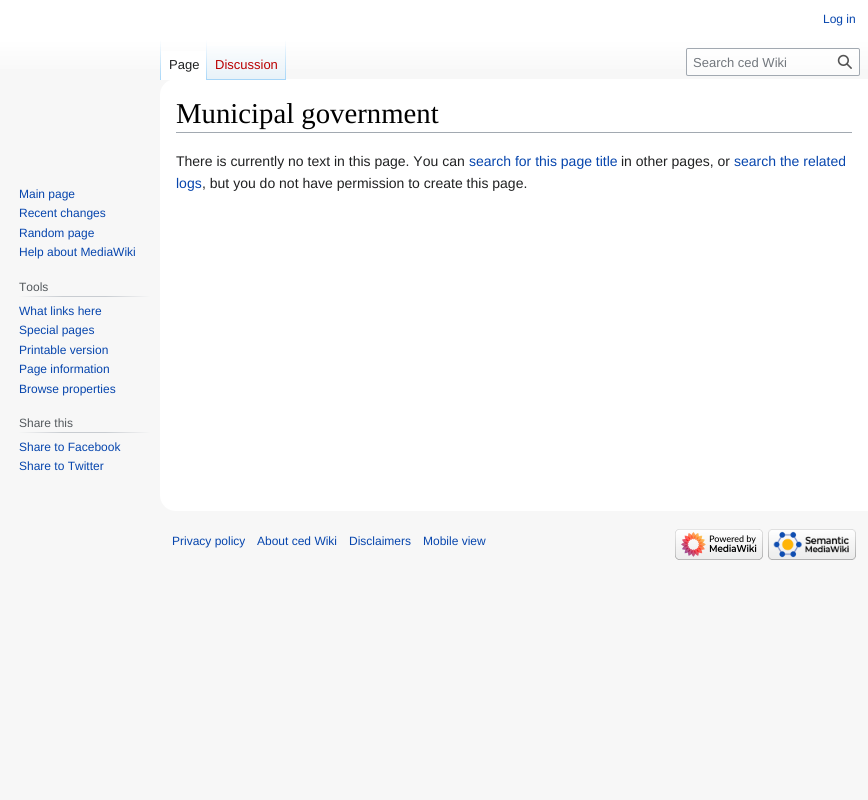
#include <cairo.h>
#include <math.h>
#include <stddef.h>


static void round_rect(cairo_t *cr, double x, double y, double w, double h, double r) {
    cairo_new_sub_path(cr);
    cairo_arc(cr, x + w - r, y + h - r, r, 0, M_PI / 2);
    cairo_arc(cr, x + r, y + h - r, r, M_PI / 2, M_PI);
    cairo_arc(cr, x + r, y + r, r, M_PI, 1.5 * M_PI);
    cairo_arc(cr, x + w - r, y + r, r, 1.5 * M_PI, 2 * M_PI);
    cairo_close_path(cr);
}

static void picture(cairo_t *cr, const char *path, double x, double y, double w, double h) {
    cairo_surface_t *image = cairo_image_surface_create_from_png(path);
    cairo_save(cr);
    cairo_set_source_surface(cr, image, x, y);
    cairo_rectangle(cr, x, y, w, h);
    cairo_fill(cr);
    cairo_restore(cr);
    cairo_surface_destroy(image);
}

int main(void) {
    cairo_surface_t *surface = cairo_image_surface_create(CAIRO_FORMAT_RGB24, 868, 800);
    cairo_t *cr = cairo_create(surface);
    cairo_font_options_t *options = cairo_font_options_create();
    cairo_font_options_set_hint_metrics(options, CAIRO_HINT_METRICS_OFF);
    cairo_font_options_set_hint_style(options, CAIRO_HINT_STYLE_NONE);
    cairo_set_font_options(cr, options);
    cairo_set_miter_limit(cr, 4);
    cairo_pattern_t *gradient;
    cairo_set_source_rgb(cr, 0.965, 0.965, 0.965);
    cairo_paint(cr);
    gradient = cairo_pattern_create_linear(434, 0, 434, 80);
    cairo_pattern_add_color_stop_rgba(gradient, 0.5, 1, 1, 1, 1);
    cairo_pattern_add_color_stop_rgba(gradient, 1, 0.965, 0.965, 0.965, 1);
    cairo_set_source(cr, gradient);
    cairo_pattern_destroy(gradient);
    cairo_rectangle(cr, 0, 0, 868, 69);
    cairo_fill(cr);
    cairo_select_font_face(cr, "Liberation Sans", CAIRO_FONT_SLANT_NORMAL, CAIRO_FONT_WEIGHT_NORMAL);
    cairo_set_font_size(cr, 12);
    cairo_set_source_rgb(cr, 0.024, 0.271, 0.678);
    cairo_move_to(cr, 823, 23);
    cairo_show_text(cr, "Log in");
    cairo_set_source_rgb(cr, 1, 1, 1);
    cairo_new_path(cr);
    cairo_move_to(cr, 176, 79);
    cairo_line_to(cr, 868, 79);
    cairo_line_to(cr, 868, 511);
    cairo_line_to(cr, 176, 511);
    cairo_curve_to(cr, 167, 511, 160, 504, 160, 495);
    cairo_line_to(cr, 160, 95);
    cairo_curve_to(cr, 160, 86, 167, 79, 176, 79);
    cairo_close_path(cr);
    cairo_fill(cr);
    gradient = cairo_pattern_create_linear(161, 40, 161, 80);
    cairo_pattern_add_color_stop_rgba(gradient, 0, 0.655, 0.843, 0.976, 0);
    cairo_pattern_add_color_stop_rgba(gradient, 1, 0.655, 0.843, 0.976, 1);
    cairo_set_source(cr, gradient);
    cairo_pattern_destroy(gradient);
    cairo_rectangle(cr, 160, 40, 1, 40);
    cairo_fill(cr);
    cairo_set_source_rgb(cr, 1, 1, 1);
    cairo_rectangle(cr, 161, 51, 45, 29);
    cairo_fill(cr);
    gradient = cairo_pattern_create_linear(207, 40, 207, 80);
    cairo_pattern_add_color_stop_rgba(gradient, 0, 1, 1, 1, 1);
    cairo_pattern_add_color_stop_rgba(gradient, 1, 0.655, 0.843, 0.976, 1);
    cairo_set_source(cr, gradient);
    cairo_pattern_destroy(gradient);
    cairo_rectangle(cr, 206, 40, 1, 40);
    cairo_fill(cr);
    cairo_set_font_size(cr, 13);
    cairo_set_source_rgb(cr, 0.125, 0.129, 0.133);
    cairo_move_to(cr, 169, 69);
    cairo_show_text(cr, "Page");
    gradient = cairo_pattern_create_linear(247, 80, 247, 40);
    cairo_pattern_add_color_stop_rgba(gradient, 0, 0.467, 0.757, 0.965, 1);
    cairo_pattern_add_color_stop_rgba(gradient, 0.03, 0.91, 0.949, 0.973, 1);
    cairo_pattern_add_color_stop_rgba(gradient, 1, 1, 1, 1, 1);
    cairo_set_source(cr, gradient);
    cairo_pattern_destroy(gradient);
    cairo_rectangle(cr, 207, 46, 79, 34);
    cairo_fill(cr);
    gradient = cairo_pattern_create_linear(286, 40, 286, 80);
    cairo_pattern_add_color_stop_rgba(gradient, 0, 0.655, 0.843, 0.976, 0);
    cairo_pattern_add_color_stop_rgba(gradient, 1, 0.655, 0.843, 0.976, 1);
    cairo_set_source(cr, gradient);
    cairo_pattern_destroy(gradient);
    cairo_rectangle(cr, 285, 40, 1, 40);
    cairo_fill(cr);
    cairo_set_source_rgb(cr, 0.729, 0, 0);
    cairo_move_to(cr, 215, 69);
    cairo_show_text(cr, "Discussion");
    cairo_set_source_rgba(cr, 1, 1, 1, 0.5);
    round_rect(cr, 686.5, 48.5, 173, 27, 1.5);
    cairo_fill_preserve(cr);
    cairo_set_source_rgb(cr, 0.635, 0.663, 0.694);
    cairo_set_line_width(cr, 1);
    cairo_stroke(cr);
    cairo_set_source_rgb(cr, 0.447, 0.467, 0.49);
    cairo_move_to(cr, 693, 67);
    cairo_show_text(cr, "Search ced Wiki");
    picture(cr, "img1.png", 837, 54, 15, 15);
    cairo_set_font_size(cr, 12);
    cairo_set_source_rgb(cr, 0.024, 0.271, 0.678);
    cairo_move_to(cr, 19, 198);
    cairo_show_text(cr, "Main page");
    cairo_move_to(cr, 19, 217);
    cairo_show_text(cr, "Recent changes");
    cairo_move_to(cr, 19, 237);
    cairo_show_text(cr, "Random page");
    cairo_move_to(cr, 19, 256);
    cairo_show_text(cr, "Help about MediaWiki");
    gradient = cairo_pattern_create_linear(19, 297, 150, 297);
    cairo_pattern_add_color_stop_rgba(gradient, 0, 0.965, 0.965, 0.965, 1);
    cairo_pattern_add_color_stop_rgba(gradient, 0.33, 0.784, 0.8, 0.82, 1);
    cairo_pattern_add_color_stop_rgba(gradient, 0.66, 0.784, 0.8, 0.82, 1);
    cairo_pattern_add_color_stop_rgba(gradient, 1, 0.965, 0.965, 0.965, 1);
    cairo_set_source(cr, gradient);
    cairo_pattern_destroy(gradient);
    cairo_rectangle(cr, 19, 296, 131, 1);
    cairo_fill(cr);
    cairo_set_source_rgb(cr, 0.329, 0.349, 0.365);
    cairo_move_to(cr, 19, 291);
    cairo_show_text(cr, "Tools");
    cairo_set_source_rgb(cr, 0.024, 0.271, 0.678);
    cairo_move_to(cr, 19, 315);
    cairo_show_text(cr, "What links here");
    cairo_move_to(cr, 19, 334);
    cairo_show_text(cr, "Special pages");
    cairo_move_to(cr, 19, 354);
    cairo_show_text(cr, "Printable version");
    cairo_move_to(cr, 19, 373);
    cairo_show_text(cr, "Page information");
    cairo_move_to(cr, 19, 393);
    cairo_show_text(cr, "Browse properties");
    gradient = cairo_pattern_create_linear(19, 433, 150, 433);
    cairo_pattern_add_color_stop_rgba(gradient, 0, 0.965, 0.965, 0.965, 1);
    cairo_pattern_add_color_stop_rgba(gradient, 0.33, 0.784, 0.8, 0.82, 1);
    cairo_pattern_add_color_stop_rgba(gradient, 0.66, 0.784, 0.8, 0.82, 1);
    cairo_pattern_add_color_stop_rgba(gradient, 1, 0.965, 0.965, 0.965, 1);
    cairo_set_source(cr, gradient);
    cairo_pattern_destroy(gradient);
    cairo_rectangle(cr, 19, 432, 131, 1);
    cairo_fill(cr);
    cairo_set_source_rgb(cr, 0.329, 0.349, 0.365);
    cairo_move_to(cr, 19, 427);
    cairo_show_text(cr, "Share this");
    cairo_set_source_rgb(cr, 0.024, 0.271, 0.678);
    cairo_move_to(cr, 19, 451);
    cairo_show_text(cr, "Share to Facebook");
    cairo_move_to(cr, 19, 470);
    cairo_show_text(cr, "Share to Twitter");
    cairo_set_source_rgb(cr, 0.635, 0.663, 0.694);
    cairo_rectangle(cr, 176, 132, 676, 1);
    cairo_fill(cr);
    cairo_select_font_face(cr, "Liberation Serif", CAIRO_FONT_SLANT_NORMAL, CAIRO_FONT_WEIGHT_NORMAL);
    cairo_set_font_size(cr, 28.75);
    cairo_set_source_rgb(cr, 0, 0, 0);
    cairo_move_to(cr, 176, 123);
    cairo_show_text(cr, "Municipal government");
    cairo_select_font_face(cr, "Liberation Sans", CAIRO_FONT_SLANT_NORMAL, CAIRO_FONT_WEIGHT_NORMAL);
    cairo_set_font_size(cr, 14);
    cairo_set_source_rgb(cr, 0.125, 0.129, 0.133);
    cairo_move_to(cr, 176, 166);
    cairo_show_text(cr, "There is currently no text in this page. You can");
    cairo_set_source_rgb(cr, 0.024, 0.271, 0.678);
    cairo_move_to(cr, 469, 166);
    cairo_show_text(cr, "search for this page title");
    cairo_set_source_rgb(cr, 0.125, 0.129, 0.133);
    cairo_move_to(cr, 621, 166);
    cairo_show_text(cr, "in other pages, or");
    cairo_set_source_rgb(cr, 0.024, 0.271, 0.678);
    cairo_move_to(cr, 734, 166);
    cairo_show_text(cr, "search the related");
    cairo_move_to(cr, 176, 188);
    cairo_show_text(cr, "logs");
    cairo_set_source_rgb(cr, 0.125, 0.129, 0.133);
    cairo_move_to(cr, 202, 188);
    cairo_show_text(cr, ", but you do not have permission to create this page.");
    cairo_set_font_size(cr, 12);
    cairo_set_source_rgb(cr, 0.024, 0.271, 0.678);
    cairo_move_to(cr, 172, 545);
    cairo_show_text(cr, "Privacy policy");
    cairo_move_to(cr, 257, 545);
    cairo_show_text(cr, "About ced Wiki");
    cairo_move_to(cr, 349, 545);
    cairo_show_text(cr, "Disclaimers");
    cairo_move_to(cr, 423, 545);
    cairo_show_text(cr, "Mobile view");
    picture(cr, "img2.png", 675, 529, 88, 31);
    picture(cr, "img3.png", 768, 529, 88, 31);
    cairo_surface_write_to_png(surface, "page.png");
    cairo_font_options_destroy(options);
    cairo_destroy(cr);
    cairo_surface_destroy(surface);
    return 0;
}
